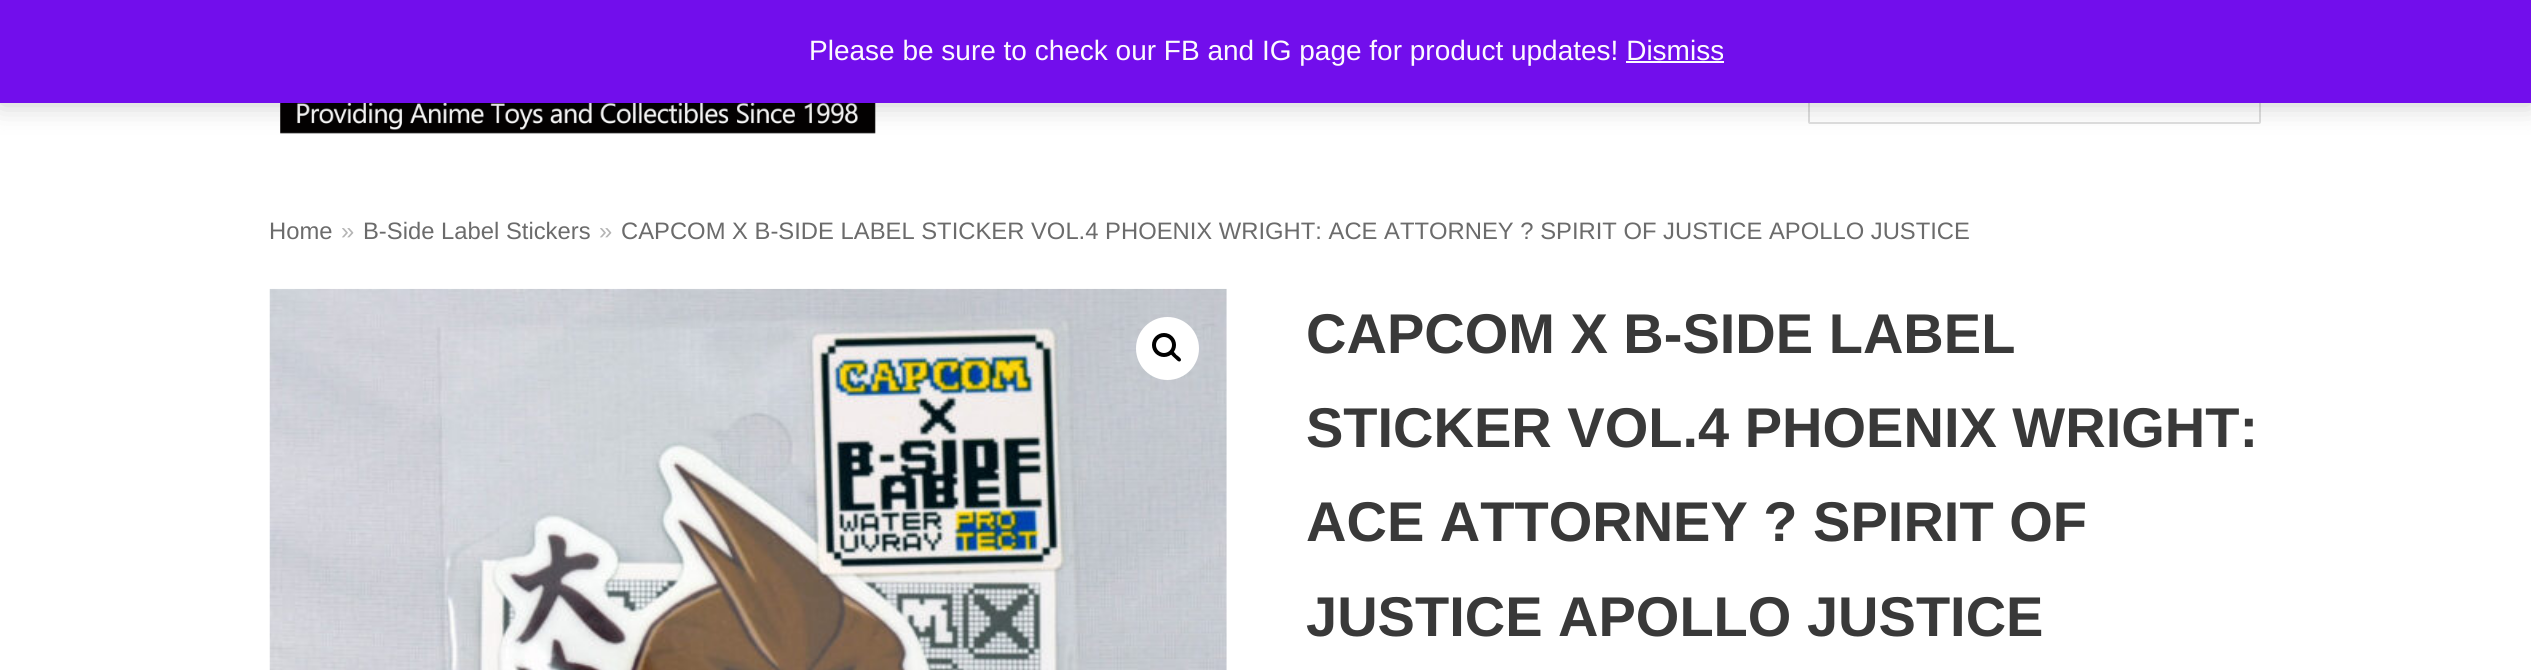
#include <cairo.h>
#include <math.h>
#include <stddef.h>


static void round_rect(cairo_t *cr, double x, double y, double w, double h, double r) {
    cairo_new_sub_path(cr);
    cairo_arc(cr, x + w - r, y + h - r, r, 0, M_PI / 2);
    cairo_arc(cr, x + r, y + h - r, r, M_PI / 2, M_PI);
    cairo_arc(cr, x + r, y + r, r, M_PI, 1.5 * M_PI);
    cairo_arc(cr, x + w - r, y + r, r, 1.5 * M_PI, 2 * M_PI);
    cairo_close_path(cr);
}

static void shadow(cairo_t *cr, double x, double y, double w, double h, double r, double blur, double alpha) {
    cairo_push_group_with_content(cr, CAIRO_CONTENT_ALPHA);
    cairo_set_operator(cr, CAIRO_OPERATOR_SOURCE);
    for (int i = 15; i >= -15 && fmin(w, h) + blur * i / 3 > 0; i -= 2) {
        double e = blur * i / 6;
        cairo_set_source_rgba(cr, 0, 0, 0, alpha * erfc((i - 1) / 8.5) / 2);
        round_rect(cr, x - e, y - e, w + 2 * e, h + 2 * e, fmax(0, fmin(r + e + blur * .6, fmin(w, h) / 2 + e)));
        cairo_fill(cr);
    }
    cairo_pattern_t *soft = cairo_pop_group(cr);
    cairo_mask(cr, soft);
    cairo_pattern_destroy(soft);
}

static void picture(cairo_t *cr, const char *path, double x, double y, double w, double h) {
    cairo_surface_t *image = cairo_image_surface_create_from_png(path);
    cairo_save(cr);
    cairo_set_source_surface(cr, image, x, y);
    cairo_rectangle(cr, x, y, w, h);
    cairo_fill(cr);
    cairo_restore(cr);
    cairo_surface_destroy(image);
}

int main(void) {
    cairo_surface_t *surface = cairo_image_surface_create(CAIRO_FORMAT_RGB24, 2531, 670);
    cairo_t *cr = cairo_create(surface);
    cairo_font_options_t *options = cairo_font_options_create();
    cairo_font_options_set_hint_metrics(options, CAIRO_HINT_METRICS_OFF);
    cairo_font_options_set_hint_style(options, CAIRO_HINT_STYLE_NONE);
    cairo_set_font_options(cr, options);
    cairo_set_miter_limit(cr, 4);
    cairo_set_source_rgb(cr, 1, 1, 1);
    cairo_paint(cr);
    picture(cr, "img1.png", 280, 103, 596, 31);
    round_rect(cr, 1809, 55, 451, 68, 1);
    cairo_set_source_rgb(cr, 0.867, 0.867, 0.867);
    cairo_stroke(cr);
    cairo_set_source_rgb(cr, 0, 0, 0);
    shadow(cr, 0, 2, 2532, 103, 0, 14, 0.2);
    cairo_set_source_rgb(cr, 0.447, 0.055, 0.925);
    cairo_rectangle(cr, 0, 0, 2531, 103);
    cairo_fill(cr);
    cairo_select_font_face(cr, "Liberation Sans", CAIRO_FONT_SLANT_NORMAL, CAIRO_FONT_WEIGHT_NORMAL);
    cairo_set_font_size(cr, 28);
    cairo_set_source_rgb(cr, 0.988, 0.984, 0.996);
    cairo_move_to(cr, 809, 60);
    cairo_show_text(cr, "Please be sure to check our FB and IG page for product updates! Dismiss");
    cairo_rectangle(cr, 1626, 61, 98, 2);
    cairo_fill(cr);
    cairo_set_font_size(cr, 23.8);
    cairo_set_source_rgb(cr, 0.42, 0.42, 0.42);
    cairo_move_to(cr, 269, 239);
    cairo_show_text(cr, "Home");
    cairo_set_source_rgb(cr, 0.71, 0.71, 0.71);
    cairo_move_to(cr, 341, 239);
    cairo_show_text(cr, "»");
    cairo_set_source_rgb(cr, 0.42, 0.42, 0.42);
    cairo_move_to(cr, 363, 239);
    cairo_show_text(cr, "B-Side Label Stickers");
    cairo_set_source_rgb(cr, 0.71, 0.71, 0.71);
    cairo_move_to(cr, 599, 239);
    cairo_show_text(cr, "»");
    cairo_set_source_rgb(cr, 0.42, 0.42, 0.42);
    cairo_move_to(cr, 621, 239);
    cairo_show_text(cr, "CAPCOM X B-SIDE LABEL STICKER VOL.4 PHOENIX WRIGHT: ACE ATTORNEY ? SPIRIT OF JUSTICE APOLLO JUSTICE");
    picture(cr, "img2.png", 269, 288, 958, 382);
    cairo_set_source_rgb(cr, 1, 1, 1);
    cairo_arc(cr, 1167.5, 348.5, 31.5, 0, 2 * M_PI);
    cairo_fill(cr);
    cairo_arc(cr, 1164, 345, 10, 0, 2 * M_PI);
    cairo_set_source_rgb(cr, 0, 0, 0);
    cairo_set_line_width(cr, 4);
    cairo_stroke(cr);
    cairo_new_path(cr);
    cairo_move_to(cr, 1170.5, 351);
    cairo_curve_to(cr, 1172.5, 349, 1175.5, 354, 1176.5, 355);
    cairo_curve_to(cr, 1178, 356, 1182.5, 359, 1180.5, 361);
    cairo_curve_to(cr, 1178.5, 363, 1175.5, 358.5, 1174, 357.5);
    cairo_curve_to(cr, 1173, 356.5, 1168.5, 353, 1170.5, 351);
    cairo_close_path(cr);
    cairo_fill(cr);
    cairo_select_font_face(cr, "Liberation Sans", CAIRO_FONT_SLANT_NORMAL, CAIRO_FONT_WEIGHT_BOLD);
    cairo_set_font_size(cr, 56);
    cairo_set_source_rgb(cr, 0.224, 0.224, 0.224);
    cairo_move_to(cr, 1306, 353);
    cairo_show_text(cr, "CAPCOM X B-SIDE LABEL");
    cairo_move_to(cr, 1306, 447);
    cairo_show_text(cr, "STICKER VOL.4 PHOENIX WRIGHT:");
    cairo_move_to(cr, 1306, 541);
    cairo_show_text(cr, "ACE ATTORNEY ? SPIRIT OF");
    cairo_move_to(cr, 1306, 636);
    cairo_show_text(cr, "JUSTICE APOLLO JUSTICE");
    cairo_surface_write_to_png(surface, "page.png");
    cairo_font_options_destroy(options);
    cairo_destroy(cr);
    cairo_surface_destroy(surface);
    return 0;
}
